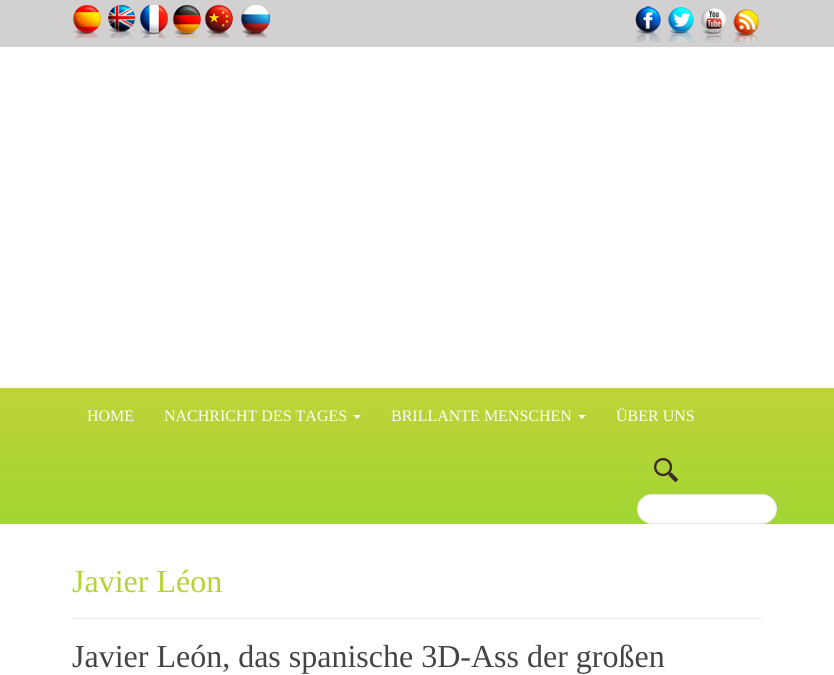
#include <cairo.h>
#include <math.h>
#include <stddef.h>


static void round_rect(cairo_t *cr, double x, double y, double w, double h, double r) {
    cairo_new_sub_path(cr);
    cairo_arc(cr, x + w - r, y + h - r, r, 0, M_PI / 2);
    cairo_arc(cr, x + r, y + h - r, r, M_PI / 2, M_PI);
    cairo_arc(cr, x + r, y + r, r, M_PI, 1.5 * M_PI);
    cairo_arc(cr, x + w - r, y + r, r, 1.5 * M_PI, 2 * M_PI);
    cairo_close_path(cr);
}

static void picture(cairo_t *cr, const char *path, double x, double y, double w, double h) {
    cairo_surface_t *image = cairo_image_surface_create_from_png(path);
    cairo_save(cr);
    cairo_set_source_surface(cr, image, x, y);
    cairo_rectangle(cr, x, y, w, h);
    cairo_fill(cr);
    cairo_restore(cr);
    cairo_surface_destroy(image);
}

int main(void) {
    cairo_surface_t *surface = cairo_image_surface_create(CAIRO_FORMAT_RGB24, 834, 675);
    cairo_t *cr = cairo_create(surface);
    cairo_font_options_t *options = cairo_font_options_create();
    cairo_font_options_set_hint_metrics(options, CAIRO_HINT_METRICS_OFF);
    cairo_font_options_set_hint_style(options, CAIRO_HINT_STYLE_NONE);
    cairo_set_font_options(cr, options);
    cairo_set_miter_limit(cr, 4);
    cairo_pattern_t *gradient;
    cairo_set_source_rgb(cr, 1, 1, 1);
    cairo_paint(cr);
    cairo_set_source_rgb(cr, 0.824, 0.816, 0.82);
    cairo_rectangle(cr, 0, 0, 834, 47);
    cairo_fill(cr);
    picture(cr, "img1.png", 73, 5, 28, 33);
    picture(cr, "img2.png", 108, 5, 27, 33);
    picture(cr, "img3.png", 140, 5, 28, 33);
    picture(cr, "img4.png", 173, 5, 28, 33);
    picture(cr, "img5.png", 205, 5, 28, 33);
    picture(cr, "img6.png", 241, 5, 29, 33);
    picture(cr, "img7.png", 635, 6, 26, 36);
    picture(cr, "img8.png", 668, 7, 26, 35);
    picture(cr, "img9.png", 701, 7, 26, 35);
    picture(cr, "img10.png", 733, 9, 26, 33);
    gradient = cairo_pattern_create_linear(417, 388, 417, 524);
    cairo_pattern_add_color_stop_rgba(gradient, 0, 0.753, 0.824, 0.22, 1);
    cairo_pattern_add_color_stop_rgba(gradient, 1, 0.631, 0.839, 0.2, 1);
    cairo_set_source(cr, gradient);
    cairo_pattern_destroy(gradient);
    cairo_rectangle(cr, 0, 388, 834, 136);
    cairo_fill(cr);
    cairo_select_font_face(cr, "Liberation Serif", CAIRO_FONT_SLANT_NORMAL, CAIRO_FONT_WEIGHT_NORMAL);
    cairo_set_font_size(cr, 16);
    cairo_set_source_rgb(cr, 1, 1, 1);
    cairo_move_to(cr, 87, 421);
    cairo_show_text(cr, "HOME");
    cairo_move_to(cr, 164, 421);
    cairo_show_text(cr, "NACHRICHT DES TAGES");
    cairo_new_path(cr);
    cairo_move_to(cr, 353, 415);
    cairo_line_to(cr, 361, 415);
    cairo_line_to(cr, 357, 419);
    cairo_close_path(cr);
    cairo_fill(cr);
    cairo_move_to(cr, 391, 421);
    cairo_show_text(cr, "BRILLANTE MENSCHEN");
    cairo_new_path(cr);
    cairo_move_to(cr, 578, 415);
    cairo_line_to(cr, 586, 415);
    cairo_line_to(cr, 582, 419);
    cairo_close_path(cr);
    cairo_fill(cr);
    cairo_move_to(cr, 616, 421);
    cairo_show_text(cr, "ÜBER UNS");
    picture(cr, "img11.png", 654, 458, 24, 24);
    round_rect(cr, 637.5, 494.5, 139, 29, 14.5);
    cairo_fill_preserve(cr);
    cairo_set_source_rgb(cr, 0.91, 0.91, 0.91);
    cairo_set_line_width(cr, 1);
    cairo_stroke(cr);
    cairo_set_source_rgb(cr, 0.933, 0.933, 0.933);
    cairo_rectangle(cr, 72, 618, 690, 1);
    cairo_fill(cr);
    cairo_set_font_size(cr, 32);
    cairo_set_source_rgb(cr, 0.702, 0.831, 0.212);
    cairo_move_to(cr, 72, 592);
    cairo_show_text(cr, "Javier Léon");
    cairo_set_source_rgb(cr, 0.267, 0.267, 0.267);
    cairo_move_to(cr, 72, 667);
    cairo_show_text(cr, "Javier León, das spanische 3D-Ass der großen");
    cairo_surface_write_to_png(surface, "page.png");
    cairo_font_options_destroy(options);
    cairo_destroy(cr);
    cairo_surface_destroy(surface);
    return 0;
}
